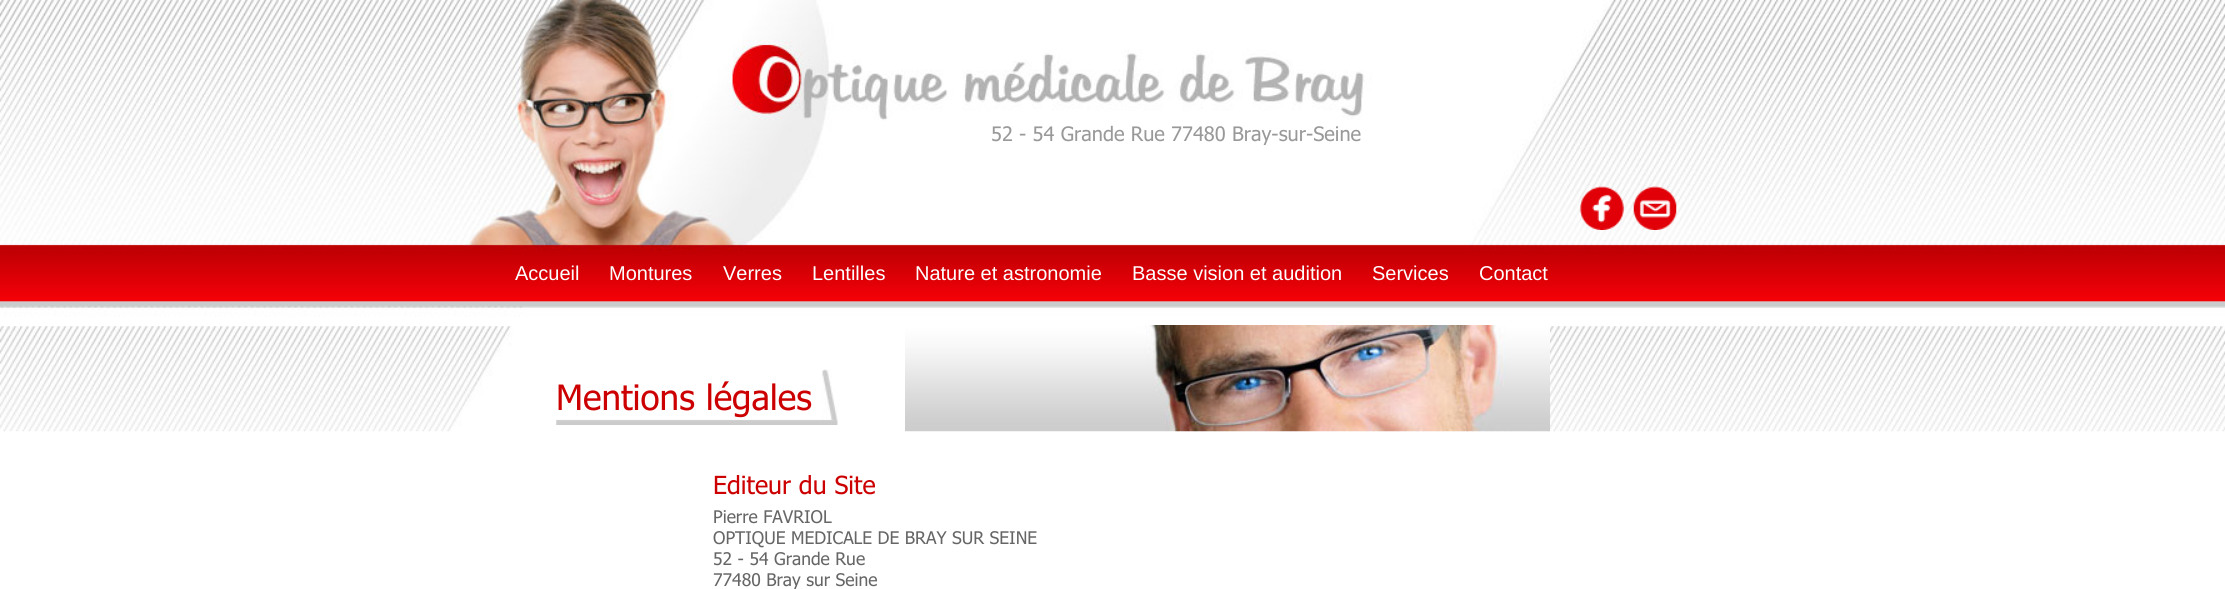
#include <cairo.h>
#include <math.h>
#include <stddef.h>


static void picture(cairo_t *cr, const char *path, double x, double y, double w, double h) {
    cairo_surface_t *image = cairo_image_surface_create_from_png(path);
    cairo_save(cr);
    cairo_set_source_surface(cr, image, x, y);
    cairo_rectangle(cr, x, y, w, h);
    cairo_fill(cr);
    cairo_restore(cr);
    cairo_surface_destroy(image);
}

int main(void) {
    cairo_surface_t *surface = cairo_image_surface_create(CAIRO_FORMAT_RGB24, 2225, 589);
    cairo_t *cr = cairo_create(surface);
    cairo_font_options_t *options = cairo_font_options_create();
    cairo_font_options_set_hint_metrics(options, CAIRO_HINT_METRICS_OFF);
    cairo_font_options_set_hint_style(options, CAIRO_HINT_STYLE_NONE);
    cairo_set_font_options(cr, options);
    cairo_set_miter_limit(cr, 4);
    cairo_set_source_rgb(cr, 1, 1, 1);
    cairo_paint(cr);
    picture(cr, "img1.png", 0, 0, 2225, 307);
    cairo_select_font_face(cr, "Tahoma", CAIRO_FONT_SLANT_NORMAL, CAIRO_FONT_WEIGHT_NORMAL);
    cairo_set_font_size(cr, 20);
    cairo_set_source_rgb(cr, 0.6, 0.6, 0.6);
    cairo_move_to(cr, 991, 141);
    cairo_show_text(cr, "52 - 54 Grande Rue 77480 Bray-sur-Seine");
    picture(cr, "img2.png", 1579, 186, 45, 44);
    picture(cr, "img3.png", 1633, 186, 44, 44);
    cairo_select_font_face(cr, "Liberation Sans", CAIRO_FONT_SLANT_NORMAL, CAIRO_FONT_WEIGHT_NORMAL);
    cairo_set_source_rgb(cr, 1, 1, 1);
    cairo_move_to(cr, 515, 280);
    cairo_show_text(cr, "Accueil");
    cairo_move_to(cr, 609, 280);
    cairo_show_text(cr, "Montures");
    cairo_move_to(cr, 723, 280);
    cairo_show_text(cr, "Verres");
    cairo_move_to(cr, 812, 280);
    cairo_show_text(cr, "Lentilles");
    cairo_move_to(cr, 915, 280);
    cairo_show_text(cr, "Nature et astronomie");
    cairo_move_to(cr, 1132, 280);
    cairo_show_text(cr, "Basse vision et audition");
    cairo_move_to(cr, 1372, 280);
    cairo_show_text(cr, "Services");
    cairo_move_to(cr, 1479, 280);
    cairo_show_text(cr, "Contact");
    picture(cr, "img4.png", 0, 306, 2225, 126);
    picture(cr, "img5.png", 556, 369, 282, 56);
    cairo_select_font_face(cr, "Tahoma", CAIRO_FONT_SLANT_NORMAL, CAIRO_FONT_WEIGHT_NORMAL);
    cairo_set_font_size(cr, 35);
    cairo_set_source_rgb(cr, 0.8, 0, 0);
    cairo_move_to(cr, 556, 410);
    cairo_show_text(cr, "Mentions légales");
    picture(cr, "img6.png", 905, 325, 645, 107);
    cairo_set_font_size(cr, 25);
    cairo_move_to(cr, 713, 494);
    cairo_show_text(cr, "Editeur du Site");
    cairo_set_font_size(cr, 17.5);
    cairo_set_source_rgb(cr, 0.4, 0.4, 0.4);
    cairo_move_to(cr, 713, 523);
    cairo_show_text(cr, "Pierre FAVRIOL");
    cairo_move_to(cr, 713, 544);
    cairo_show_text(cr, "OPTIQUE MEDICALE DE BRAY SUR SEINE");
    cairo_move_to(cr, 713, 565);
    cairo_show_text(cr, "52 - 54 Grande Rue");
    cairo_move_to(cr, 713, 586);
    cairo_show_text(cr, "77480 Bray sur Seine");
    cairo_surface_write_to_png(surface, "page.png");
    cairo_font_options_destroy(options);
    cairo_destroy(cr);
    cairo_surface_destroy(surface);
    return 0;
}
